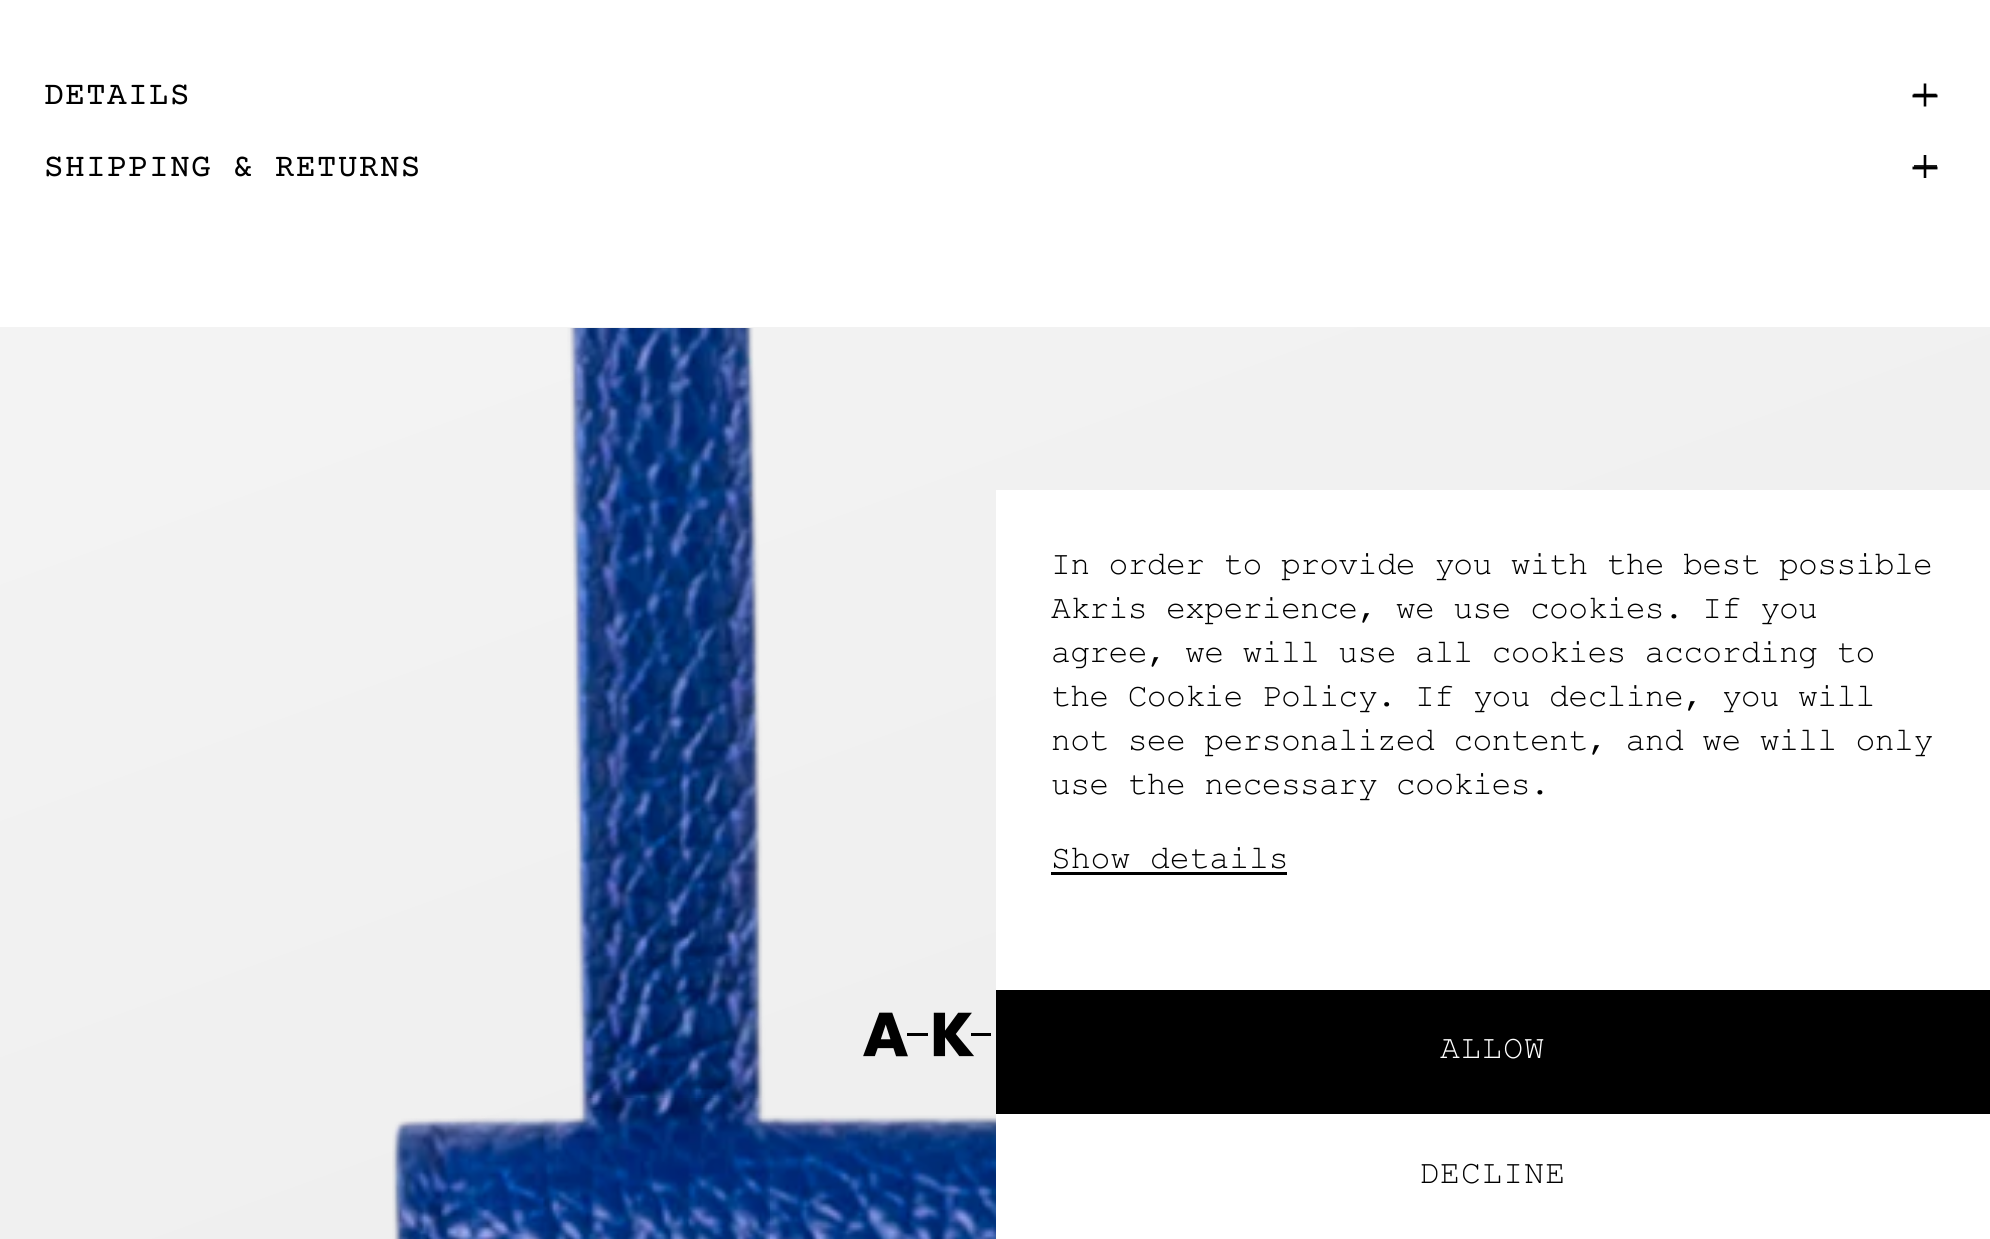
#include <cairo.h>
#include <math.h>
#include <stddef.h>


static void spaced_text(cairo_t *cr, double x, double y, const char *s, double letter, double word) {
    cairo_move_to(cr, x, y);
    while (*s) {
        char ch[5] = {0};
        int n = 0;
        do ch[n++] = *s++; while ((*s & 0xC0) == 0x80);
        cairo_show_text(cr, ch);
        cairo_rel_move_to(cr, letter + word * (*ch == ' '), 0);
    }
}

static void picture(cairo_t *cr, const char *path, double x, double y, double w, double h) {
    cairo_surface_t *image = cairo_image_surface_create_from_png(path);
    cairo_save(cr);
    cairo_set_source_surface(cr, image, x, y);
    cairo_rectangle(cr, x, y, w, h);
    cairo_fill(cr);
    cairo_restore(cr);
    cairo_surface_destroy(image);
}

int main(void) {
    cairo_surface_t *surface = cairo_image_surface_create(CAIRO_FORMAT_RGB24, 1990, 1239);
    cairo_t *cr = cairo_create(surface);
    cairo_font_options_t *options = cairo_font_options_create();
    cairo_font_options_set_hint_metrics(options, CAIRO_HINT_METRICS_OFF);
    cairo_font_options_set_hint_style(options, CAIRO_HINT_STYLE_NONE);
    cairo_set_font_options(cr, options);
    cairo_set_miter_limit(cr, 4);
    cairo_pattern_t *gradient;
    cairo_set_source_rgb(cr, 1, 1, 1);
    cairo_paint(cr);
    cairo_select_font_face(cr, "Courier Prime", CAIRO_FONT_SLANT_NORMAL, CAIRO_FONT_WEIGHT_NORMAL);
    cairo_set_font_size(cr, 33);
    cairo_set_source_rgb(cr, 0, 0, 0);
    spaced_text(cr, 44, 104, "DETAILS", 1.2, 0);
    cairo_new_path(cr);
    cairo_move_to(cr, 1913.5, 95);
    cairo_line_to(cr, 1936.5, 95);
    cairo_move_to(cr, 1925, 83.5);
    cairo_line_to(cr, 1925, 106.5);
    cairo_set_line_width(cr, 2.6);
    cairo_stroke(cr);
    cairo_new_path(cr);
    cairo_move_to(cr, 1912.5, 96);
    cairo_line_to(cr, 1937.5, 96);
    cairo_set_line_width(cr, 2.8);
    cairo_stroke(cr);
    spaced_text(cr, 44, 176, "SHIPPING & RETURNS", 1.2, 0);
    cairo_set_source_rgb(cr, 0.133, 0.133, 0.133);
    cairo_rectangle(cr, 1914, 165, 23, 2);
    cairo_fill(cr);
    cairo_new_path(cr);
    cairo_move_to(cr, 1925, 155);
    cairo_line_to(cr, 1925, 178);
    cairo_set_source_rgb(cr, 0, 0, 0);
    cairo_set_line_width(cr, 2.6);
    cairo_stroke(cr);
    cairo_new_path(cr);
    cairo_move_to(cr, 1912.5, 168);
    cairo_line_to(cr, 1937.5, 168);
    cairo_set_line_width(cr, 2.8);
    cairo_stroke(cr);
    gradient = cairo_pattern_create_linear(453, 163, 1538, 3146);
    cairo_pattern_add_color_stop_rgba(gradient, 0.04, 0.953, 0.953, 0.953, 1);
    cairo_pattern_add_color_stop_rgba(gradient, 0.95, 0.902, 0.902, 0.902, 1);
    cairo_set_source(cr, gradient);
    cairo_pattern_destroy(gradient);
    cairo_rectangle(cr, 0, 327, 1990, 912);
    cairo_fill(cr);
    picture(cr, "img1.png", 392, 328, 604, 911);
    picture(cr, "img2.png", 863, 1012, 128, 45);
    cairo_set_source_rgb(cr, 1, 1, 1);
    cairo_rectangle(cr, 996, 490, 994, 749);
    cairo_fill(cr);
    cairo_select_font_face(cr, "Courier New", CAIRO_FONT_SLANT_NORMAL, CAIRO_FONT_WEIGHT_NORMAL);
    cairo_set_source_rgb(cr, 0, 0, 0);
    spaced_text(cr, 1051, 574, "In order to provide you with the best possible", -0.65, 0);
    spaced_text(cr, 1051, 618, "Akris experience, we use cookies. If you", -0.65, 0);
    spaced_text(cr, 1051, 662, "agree, we will use all cookies according to", -0.65, 0);
    spaced_text(cr, 1051, 706, "the Cookie Policy. If you decline, you will", -0.65, 0);
    spaced_text(cr, 1051, 750, "not see personalized content, and we will only", -0.65, 0);
    spaced_text(cr, 1051, 794, "use the necessary cookies.", -0.65, 0);
    cairo_move_to(cr, 1051, 868);
    cairo_show_text(cr, "Show details");
    cairo_rectangle(cr, 1051, 872, 236, 3);
    cairo_fill(cr);
    cairo_rectangle(cr, 996, 990, 994, 124);
    cairo_fill(cr);
    cairo_set_source_rgb(cr, 1, 1, 1);
    spaced_text(cr, 1440, 1058, "ALLOW", 1.25, 0);
    cairo_set_source_rgb(cr, 0, 0, 0);
    spaced_text(cr, 1419, 1183, "DECLINE", 1.25, 0);
    cairo_surface_write_to_png(surface, "page.png");
    cairo_font_options_destroy(options);
    cairo_destroy(cr);
    cairo_surface_destroy(surface);
    return 0;
}
